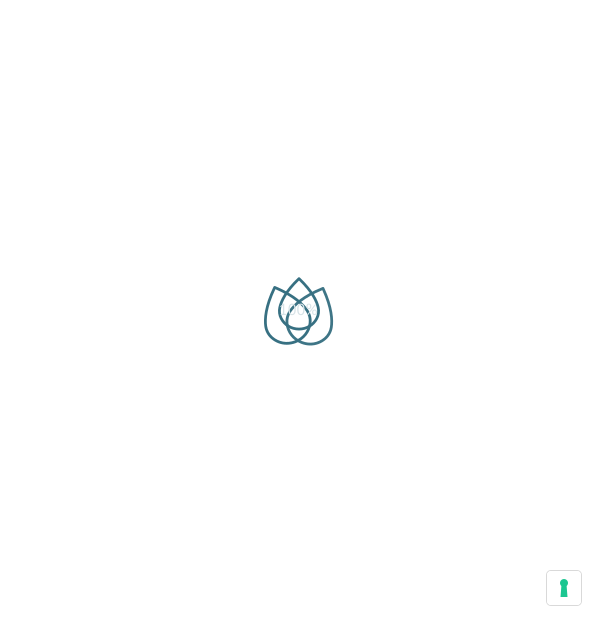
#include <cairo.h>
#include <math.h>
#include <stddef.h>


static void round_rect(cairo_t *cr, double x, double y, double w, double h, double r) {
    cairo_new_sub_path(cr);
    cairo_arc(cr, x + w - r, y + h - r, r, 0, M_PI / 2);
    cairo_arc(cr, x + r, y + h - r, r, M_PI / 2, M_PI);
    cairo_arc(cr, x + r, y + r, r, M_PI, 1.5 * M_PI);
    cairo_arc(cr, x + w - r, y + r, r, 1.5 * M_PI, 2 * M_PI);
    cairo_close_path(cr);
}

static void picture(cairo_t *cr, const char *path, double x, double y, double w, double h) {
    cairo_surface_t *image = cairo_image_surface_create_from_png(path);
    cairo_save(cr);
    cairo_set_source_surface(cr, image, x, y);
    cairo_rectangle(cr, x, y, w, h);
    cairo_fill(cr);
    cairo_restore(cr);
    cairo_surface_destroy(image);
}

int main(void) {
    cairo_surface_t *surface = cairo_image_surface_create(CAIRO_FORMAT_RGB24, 597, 621);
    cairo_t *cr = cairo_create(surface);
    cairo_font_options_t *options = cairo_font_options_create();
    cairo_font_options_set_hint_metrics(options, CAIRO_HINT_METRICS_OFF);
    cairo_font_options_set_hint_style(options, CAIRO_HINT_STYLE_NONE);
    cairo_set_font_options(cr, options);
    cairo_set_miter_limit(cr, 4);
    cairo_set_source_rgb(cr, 1, 1, 1);
    cairo_paint(cr);
    picture(cr, "img1.png", 264, 277, 70, 69);
    cairo_select_font_face(cr, "PT Sans", CAIRO_FONT_SLANT_NORMAL, CAIRO_FONT_WEIGHT_NORMAL);
    cairo_set_font_size(cr, 16);
    cairo_set_source_rgb(cr, 0.847, 0.89, 0.906);
    cairo_move_to(cr, 279, 315);
    cairo_show_text(cr, "100%");
    round_rect(cr, 546.5, 570.5, 35, 35, 4.5);
    cairo_set_source_rgb(cr, 0.851, 0.851, 0.851);
    cairo_set_line_width(cr, 1);
    cairo_stroke(cr);
    cairo_set_source_rgb(cr, 1, 1, 1);
    round_rect(cr, 547, 571, 34, 34, 4);
    cairo_fill(cr);
    picture(cr, "img2.png", 560, 579, 8, 18);
    cairo_surface_write_to_png(surface, "page.png");
    cairo_font_options_destroy(options);
    cairo_destroy(cr);
    cairo_surface_destroy(surface);
    return 0;
}
